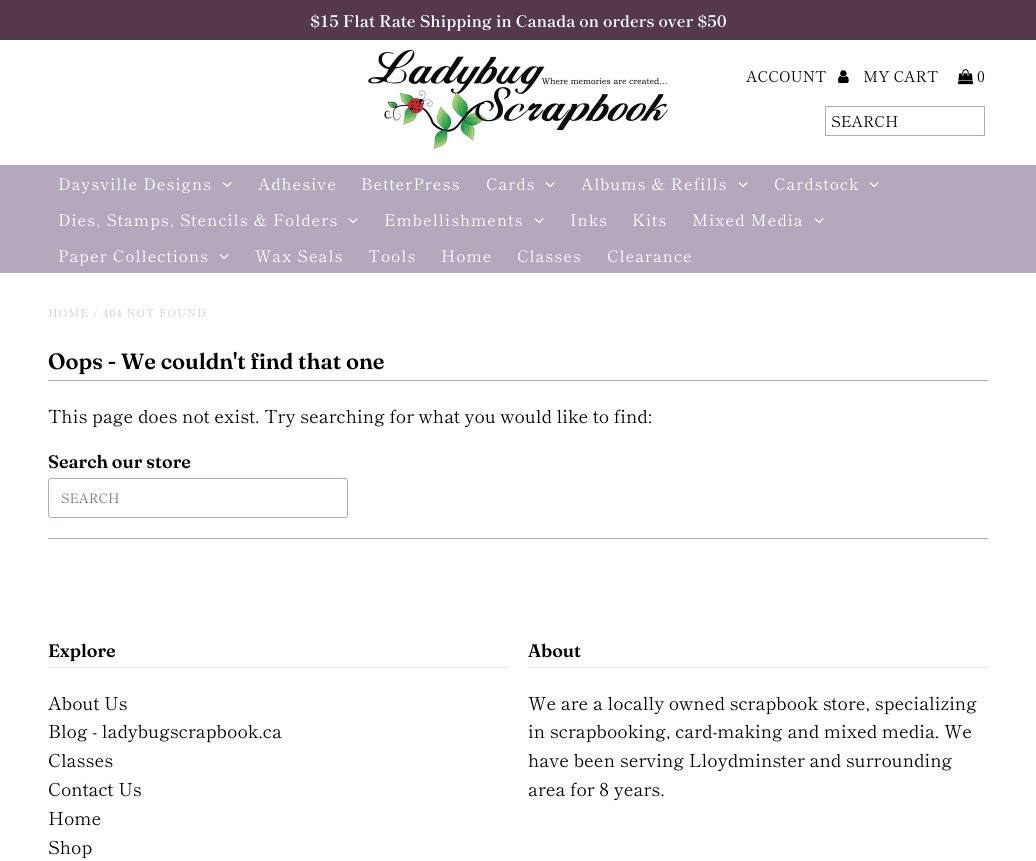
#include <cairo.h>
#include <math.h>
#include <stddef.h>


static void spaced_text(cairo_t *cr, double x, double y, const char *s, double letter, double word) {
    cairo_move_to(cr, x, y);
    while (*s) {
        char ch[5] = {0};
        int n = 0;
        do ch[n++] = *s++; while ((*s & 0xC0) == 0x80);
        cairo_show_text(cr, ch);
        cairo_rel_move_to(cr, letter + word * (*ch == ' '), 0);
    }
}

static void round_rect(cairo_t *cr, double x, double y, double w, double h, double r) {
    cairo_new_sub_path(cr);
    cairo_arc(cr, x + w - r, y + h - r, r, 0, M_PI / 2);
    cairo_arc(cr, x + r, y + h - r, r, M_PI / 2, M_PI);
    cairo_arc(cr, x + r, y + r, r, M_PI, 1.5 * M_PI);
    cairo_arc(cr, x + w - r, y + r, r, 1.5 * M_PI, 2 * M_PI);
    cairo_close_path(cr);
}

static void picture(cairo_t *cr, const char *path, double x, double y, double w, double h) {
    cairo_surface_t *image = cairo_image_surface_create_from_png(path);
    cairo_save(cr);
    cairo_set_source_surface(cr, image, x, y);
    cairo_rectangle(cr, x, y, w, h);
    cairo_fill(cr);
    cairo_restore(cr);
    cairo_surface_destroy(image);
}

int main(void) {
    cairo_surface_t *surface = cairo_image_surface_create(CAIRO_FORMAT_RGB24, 1036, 861);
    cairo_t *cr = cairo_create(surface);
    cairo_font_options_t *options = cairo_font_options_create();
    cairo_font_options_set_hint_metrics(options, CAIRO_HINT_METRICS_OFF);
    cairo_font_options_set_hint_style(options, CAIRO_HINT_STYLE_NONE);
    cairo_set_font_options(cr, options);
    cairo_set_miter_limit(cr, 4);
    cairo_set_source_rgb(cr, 1, 1, 1);
    cairo_paint(cr);
    cairo_set_source_rgb(cr, 0.329, 0.22, 0.298);
    cairo_rectangle(cr, 0, 0, 1036, 40);
    cairo_fill(cr);
    cairo_select_font_face(cr, "Shippori Mincho", CAIRO_FONT_SLANT_NORMAL, CAIRO_FONT_WEIGHT_BOLD);
    cairo_set_font_size(cr, 16);
    cairo_set_source_rgb(cr, 1, 1, 1);
    cairo_move_to(cr, 310, 27);
    cairo_show_text(cr, "$15 Flat Rate Shipping in Canada on orders over $50");
    picture(cr, "img1.png", 368, 50, 300, 99);
    cairo_select_font_face(cr, "Shippori Mincho", CAIRO_FONT_SLANT_NORMAL, CAIRO_FONT_WEIGHT_NORMAL);
    cairo_set_font_size(cr, 15);
    cairo_set_source_rgb(cr, 0, 0, 0);
    cairo_move_to(cr, 746, 82);
    cairo_show_text(cr, "ACCOUNT");
    picture(cr, "img2.png", 838, 70, 11, 14);
    cairo_move_to(cr, 863, 82);
    cairo_show_text(cr, "MY CART");
    picture(cr, "img3.png", 958, 69, 15, 16);
    cairo_move_to(cr, 977, 82);
    cairo_show_text(cr, "0");
    cairo_rectangle(cr, 825.5, 106.5, 159, 29);
    cairo_set_source_rgb(cr, 0.706, 0.659, 0.741);
    cairo_set_line_width(cr, 1);
    cairo_stroke(cr);
    cairo_set_source_rgb(cr, 0, 0, 0);
    cairo_move_to(cr, 831, 127);
    cairo_show_text(cr, "SEARCH");
    cairo_set_source_rgb(cr, 0.706, 0.659, 0.741);
    cairo_rectangle(cr, 0, 165, 1036, 108);
    cairo_fill(cr);
    cairo_set_font_size(cr, 16);
    cairo_set_source_rgb(cr, 1, 1, 1);
    spaced_text(cr, 58, 190, "Daysville Designs", 1, 0);
    picture(cr, "img4.png", 222, 182, 10, 6);
    spaced_text(cr, 258, 190, "Adhesive", 1, 0);
    spaced_text(cr, 361, 190, "BetterPress", 1, 0);
    spaced_text(cr, 486, 190, "Cards", 1, 0);
    picture(cr, "img4.png", 545, 182, 10, 6);
    spaced_text(cr, 581, 190, "Albums & Refills", 1, 0);
    picture(cr, "img4.png", 738, 182, 10, 6);
    spaced_text(cr, 774, 190, "Cardstock", 1, 0);
    picture(cr, "img4.png", 869, 182, 10, 6);
    spaced_text(cr, 58, 226, "Dies, Stamps, Stencils & Folders", 1, 0);
    picture(cr, "img4.png", 348, 218, 10, 6);
    spaced_text(cr, 384, 226, "Embellishments", 1, 0);
    picture(cr, "img4.png", 534, 218, 10, 6);
    spaced_text(cr, 570, 226, "Inks", 1, 0);
    spaced_text(cr, 632, 226, "Kits", 1, 0);
    spaced_text(cr, 692, 226, "Mixed Media", 1, 0);
    picture(cr, "img4.png", 814, 218, 10, 6);
    spaced_text(cr, 58, 262, "Paper Collections", 1, 0);
    picture(cr, "img4.png", 219, 254, 10, 6);
    spaced_text(cr, 255, 262, "Wax Seals", 1, 0);
    spaced_text(cr, 368, 262, "Tools", 1, 0);
    spaced_text(cr, 441, 262, "Home", 1, 0);
    spaced_text(cr, 517, 262, "Classes", 1, 0);
    spaced_text(cr, 607, 262, "Clearance", 1, 0);
    cairo_set_font_size(cr, 11);
    cairo_set_source_rgb(cr, 0.8, 0.8, 0.8);
    spaced_text(cr, 48, 317, "HOME / 404 NOT FOUND", 1, 0);
    cairo_set_source_rgb(cr, 0.706, 0.659, 0.741);
    cairo_rectangle(cr, 48, 380, 940, 1);
    cairo_fill(cr);
    cairo_select_font_face(cr, "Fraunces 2 SemiBold", CAIRO_FONT_SLANT_NORMAL, CAIRO_FONT_WEIGHT_NORMAL);
    cairo_set_font_size(cr, 22);
    cairo_set_source_rgb(cr, 0, 0, 0);
    cairo_move_to(cr, 48, 369);
    cairo_show_text(cr, "Oops - We couldn't find that one");
    cairo_select_font_face(cr, "Shippori Mincho", CAIRO_FONT_SLANT_NORMAL, CAIRO_FONT_WEIGHT_NORMAL);
    cairo_set_font_size(cr, 18);
    cairo_move_to(cr, 48, 423);
    cairo_show_text(cr, "This page does not exist. Try searching for what you would like to find:");
    cairo_set_source_rgb(cr, 0.706, 0.659, 0.741);
    cairo_rectangle(cr, 48, 538, 940, 1);
    cairo_fill(cr);
    cairo_select_font_face(cr, "Fraunces SemiBold", CAIRO_FONT_SLANT_NORMAL, CAIRO_FONT_WEIGHT_NORMAL);
    cairo_set_source_rgb(cr, 0, 0, 0);
    cairo_move_to(cr, 48, 468);
    cairo_show_text(cr, "Search our store");
    round_rect(cr, 48.5, 478.5, 299, 39, 2.5);
    cairo_set_source_rgb(cr, 0.706, 0.659, 0.741);
    cairo_stroke(cr);
    cairo_select_font_face(cr, "Shippori Mincho", CAIRO_FONT_SLANT_NORMAL, CAIRO_FONT_WEIGHT_NORMAL);
    cairo_set_font_size(cr, 13);
    cairo_set_source_rgb(cr, 0.459, 0.459, 0.459);
    cairo_move_to(cr, 61, 503);
    cairo_show_text(cr, "SEARCH");
    cairo_set_source_rgb(cr, 0.898, 0.898, 0.898);
    cairo_rectangle(cr, 48, 667, 460, 1);
    cairo_fill(cr);
    cairo_select_font_face(cr, "Fraunces SemiBold", CAIRO_FONT_SLANT_NORMAL, CAIRO_FONT_WEIGHT_NORMAL);
    cairo_set_font_size(cr, 18);
    cairo_set_source_rgb(cr, 0, 0, 0);
    cairo_move_to(cr, 48, 657);
    cairo_show_text(cr, "Explore");
    cairo_select_font_face(cr, "Shippori Mincho", CAIRO_FONT_SLANT_NORMAL, CAIRO_FONT_WEIGHT_NORMAL);
    cairo_move_to(cr, 48, 710);
    cairo_show_text(cr, "About Us");
    cairo_move_to(cr, 48, 738);
    cairo_show_text(cr, "Blog - ladybugscrapbook.ca");
    cairo_move_to(cr, 48, 767);
    cairo_show_text(cr, "Classes");
    cairo_move_to(cr, 48, 796);
    cairo_show_text(cr, "Contact Us");
    cairo_move_to(cr, 48, 825);
    cairo_show_text(cr, "Home");
    cairo_move_to(cr, 48, 854);
    cairo_show_text(cr, "Shop");
    cairo_set_source_rgb(cr, 0.898, 0.898, 0.898);
    cairo_rectangle(cr, 528, 667, 460, 1);
    cairo_fill(cr);
    cairo_select_font_face(cr, "Fraunces SemiBold", CAIRO_FONT_SLANT_NORMAL, CAIRO_FONT_WEIGHT_NORMAL);
    cairo_set_source_rgb(cr, 0, 0, 0);
    cairo_move_to(cr, 528, 657);
    cairo_show_text(cr, "About");
    cairo_select_font_face(cr, "Shippori Mincho", CAIRO_FONT_SLANT_NORMAL, CAIRO_FONT_WEIGHT_NORMAL);
    cairo_move_to(cr, 528, 710);
    cairo_show_text(cr, "We are a locally owned scrapbook store, specializing");
    cairo_move_to(cr, 528, 738);
    cairo_show_text(cr, "in scrapbooking, card-making and mixed media. We");
    cairo_move_to(cr, 528, 767);
    cairo_show_text(cr, "have been serving Lloydminster and surrounding");
    cairo_move_to(cr, 528, 796);
    cairo_show_text(cr, "area for 8 years.");
    cairo_surface_write_to_png(surface, "page.png");
    cairo_font_options_destroy(options);
    cairo_destroy(cr);
    cairo_surface_destroy(surface);
    return 0;
}
